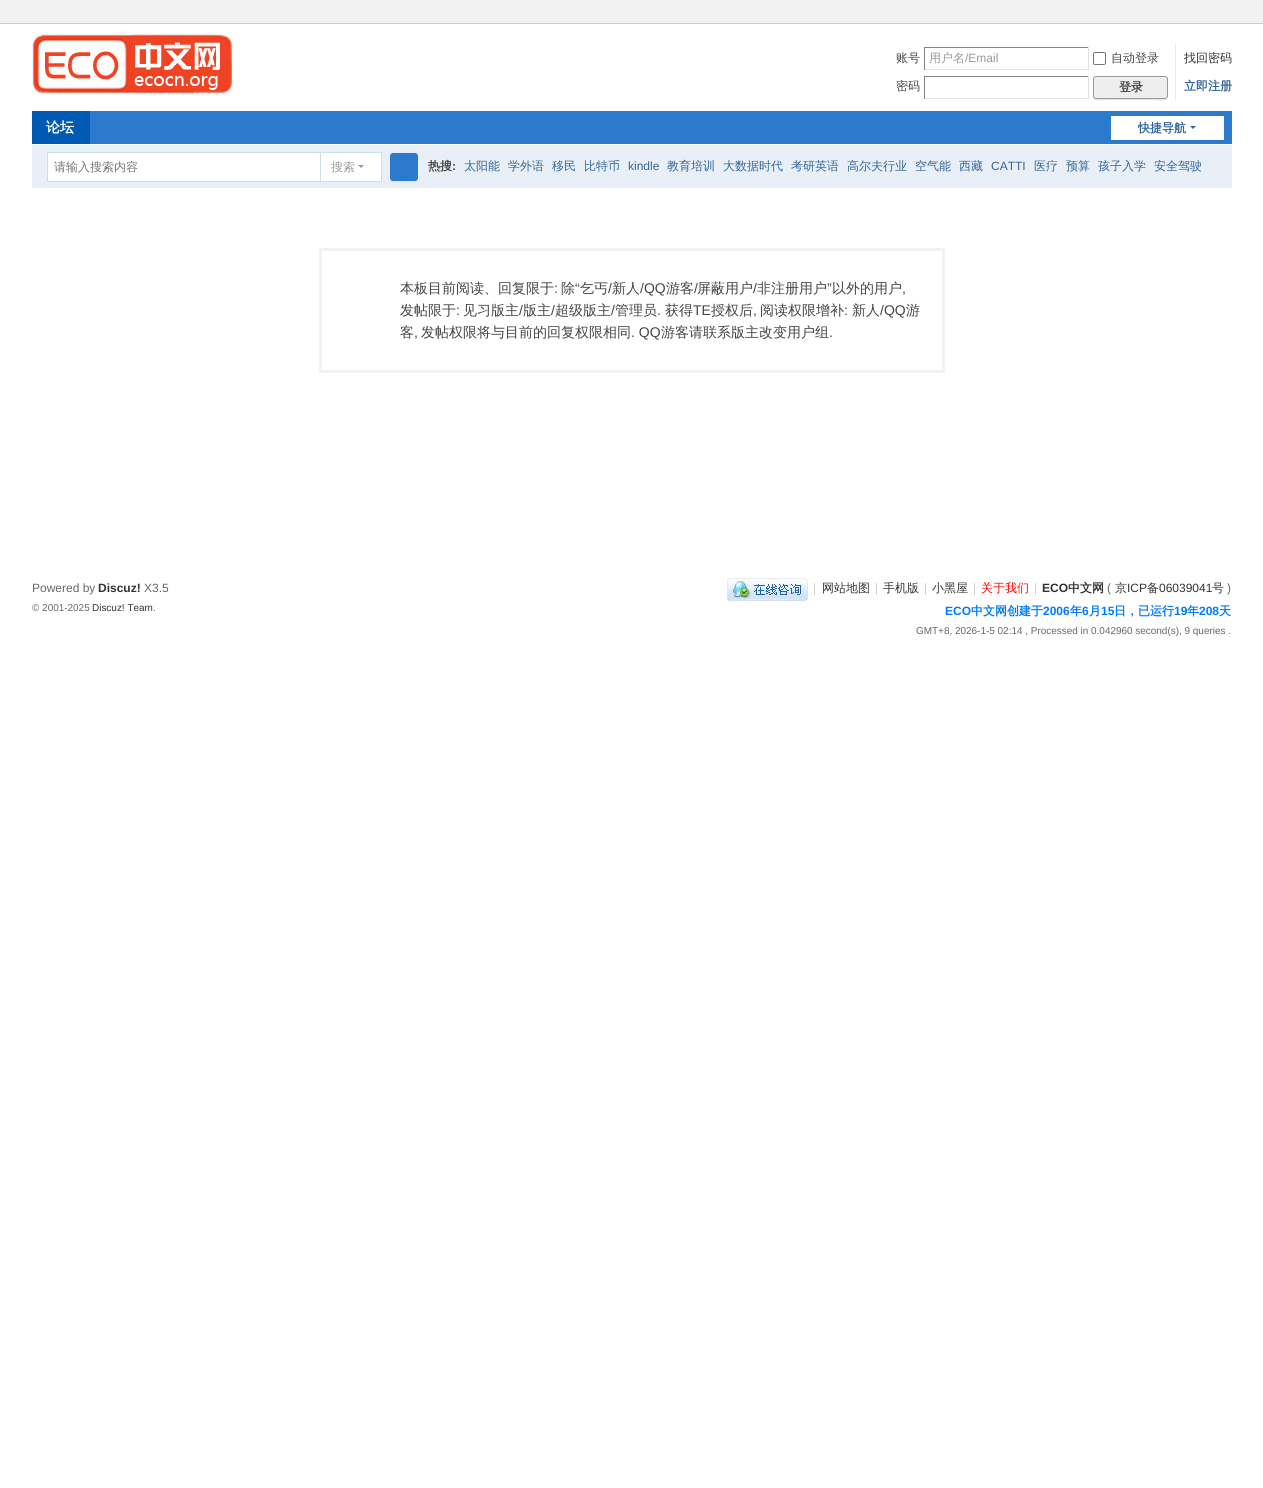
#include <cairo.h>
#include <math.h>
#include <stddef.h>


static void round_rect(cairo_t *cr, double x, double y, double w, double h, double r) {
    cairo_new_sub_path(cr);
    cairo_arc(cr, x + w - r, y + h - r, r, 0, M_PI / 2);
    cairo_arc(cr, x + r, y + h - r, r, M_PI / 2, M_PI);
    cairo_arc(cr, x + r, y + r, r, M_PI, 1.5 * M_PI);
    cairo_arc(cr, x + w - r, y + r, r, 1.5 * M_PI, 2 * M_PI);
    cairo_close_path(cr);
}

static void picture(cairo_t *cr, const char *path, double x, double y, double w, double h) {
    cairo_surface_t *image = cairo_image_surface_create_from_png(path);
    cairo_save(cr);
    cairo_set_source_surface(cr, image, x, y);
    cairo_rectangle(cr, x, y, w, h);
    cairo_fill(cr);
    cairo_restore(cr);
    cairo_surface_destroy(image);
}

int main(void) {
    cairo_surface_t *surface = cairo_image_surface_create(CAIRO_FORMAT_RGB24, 1263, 1488);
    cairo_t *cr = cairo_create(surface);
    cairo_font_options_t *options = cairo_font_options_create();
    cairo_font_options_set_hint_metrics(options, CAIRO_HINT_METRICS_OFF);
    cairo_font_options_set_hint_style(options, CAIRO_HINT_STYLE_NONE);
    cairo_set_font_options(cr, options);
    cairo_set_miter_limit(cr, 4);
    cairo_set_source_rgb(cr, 1, 1, 1);
    cairo_paint(cr);
    cairo_set_source_rgb(cr, 0.949, 0.949, 0.949);
    cairo_rectangle(cr, 0, 0, 1263, 23);
    cairo_fill(cr);
    cairo_set_source_rgb(cr, 0.804, 0.804, 0.804);
    cairo_rectangle(cr, 0, 23, 1263, 1);
    cairo_fill(cr);
    picture(cr, "img1.png", 32, 34, 200, 60);
    cairo_select_font_face(cr, "WenQuanYi Zen Hei Medium", CAIRO_FONT_SLANT_NORMAL, CAIRO_FONT_WEIGHT_NORMAL);
    cairo_set_font_size(cr, 12);
    cairo_set_source_rgb(cr, 0.267, 0.267, 0.267);
    cairo_move_to(cr, 896, 62);
    cairo_show_text(cr, "账号");
    cairo_set_source_rgb(cr, 0.518, 0.518, 0.518);
    cairo_rectangle(cr, 924, 47, 165, 1);
    cairo_fill(cr);
    cairo_set_source_rgb(cr, 0.878, 0.878, 0.878);
    cairo_rectangle(cr, 1088, 47, 1, 23);
    cairo_fill(cr);
    cairo_rectangle(cr, 924, 69, 165, 1);
    cairo_fill(cr);
    cairo_set_source_rgb(cr, 0.518, 0.518, 0.518);
    cairo_rectangle(cr, 924, 47, 1, 23);
    cairo_fill(cr);
    cairo_set_source_rgb(cr, 0.6, 0.6, 0.6);
    cairo_move_to(cr, 929, 62);
    cairo_show_text(cr, "用户名");
    cairo_select_font_face(cr, "Liberation Sans", CAIRO_FONT_SLANT_NORMAL, CAIRO_FONT_WEIGHT_NORMAL);
    cairo_move_to(cr, 965, 62);
    cairo_show_text(cr, "/Email");
    round_rect(cr, 1093.5, 52.5, 12, 12, 1.5);
    cairo_set_source_rgb(cr, 0.463, 0.463, 0.463);
    cairo_set_line_width(cr, 1);
    cairo_stroke(cr);
    cairo_select_font_face(cr, "WenQuanYi Zen Hei Medium", CAIRO_FONT_SLANT_NORMAL, CAIRO_FONT_WEIGHT_NORMAL);
    cairo_set_source_rgb(cr, 0.267, 0.267, 0.267);
    cairo_move_to(cr, 1111, 62);
    cairo_show_text(cr, "自动登录");
    cairo_set_source_rgb(cr, 0.2, 0.2, 0.2);
    cairo_move_to(cr, 1184, 62);
    cairo_show_text(cr, "找回密码");
    cairo_set_source_rgb(cr, 0.267, 0.267, 0.267);
    cairo_move_to(cr, 896, 90);
    cairo_show_text(cr, "密码");
    cairo_set_source_rgb(cr, 0.518, 0.518, 0.518);
    cairo_rectangle(cr, 924, 76, 165, 1);
    cairo_fill(cr);
    cairo_set_source_rgb(cr, 0.878, 0.878, 0.878);
    cairo_rectangle(cr, 1088, 76, 1, 23);
    cairo_fill(cr);
    cairo_rectangle(cr, 924, 98, 165, 1);
    cairo_fill(cr);
    cairo_set_source_rgb(cr, 0.518, 0.518, 0.518);
    cairo_rectangle(cr, 924, 76, 1, 23);
    cairo_fill(cr);
    cairo_set_source_rgb(cr, 0.898, 0.929, 0.949);
    cairo_rectangle(cr, 1175, 44, 1, 57);
    cairo_fill(cr);
    cairo_set_source_rgb(cr, 0.898, 0.898, 0.898);
    cairo_new_path(cr);
    cairo_move_to(cr, 1093, 96);
    cairo_curve_to(cr, 1093, 103, 1103, 100, 1108, 100);
    cairo_line_to(cr, 1154, 100);
    cairo_curve_to(cr, 1158, 100, 1168, 103, 1168, 96);
    cairo_curve_to(cr, 1168, 98, 1167, 99, 1165, 99);
    cairo_line_to(cr, 1096, 99);
    cairo_curve_to(cr, 1094, 99, 1093, 98, 1093, 96);
    cairo_close_path(cr);
    cairo_fill(cr);
    cairo_set_source_rgb(cr, 0.933, 0.933, 0.933);
    round_rect(cr, 1093.5, 76.5, 74, 22, 2.5);
    cairo_fill_preserve(cr);
    cairo_set_source_rgb(cr, 0.6, 0.6, 0.6);
    cairo_stroke(cr);
    cairo_select_font_face(cr, "WenQuanYi Zen Hei", CAIRO_FONT_SLANT_NORMAL, CAIRO_FONT_WEIGHT_BOLD);
    cairo_set_source_rgb(cr, 0.267, 0.267, 0.267);
    cairo_move_to(cr, 1119, 91);
    cairo_show_text(cr, "登录");
    cairo_set_source_rgb(cr, 0.2, 0.4, 0.6);
    cairo_move_to(cr, 1184, 90);
    cairo_show_text(cr, "立即注册");
    cairo_set_source_rgb(cr, 0.169, 0.478, 0.804);
    cairo_rectangle(cr, 90, 111, 1142, 33);
    cairo_fill(cr);
    cairo_set_source_rgb(cr, 0, 0.353, 0.706);
    cairo_rectangle(cr, 32, 111, 58, 33);
    cairo_fill(cr);
    cairo_set_font_size(cr, 14);
    cairo_set_source_rgb(cr, 1, 1, 1);
    cairo_move_to(cr, 46, 132);
    cairo_show_text(cr, "论坛");
    cairo_rectangle(cr, 1111, 116, 113, 24);
    cairo_fill(cr);
    cairo_set_font_size(cr, 12);
    cairo_set_source_rgb(cr, 0.2, 0.4, 0.6);
    cairo_move_to(cr, 1138, 132);
    cairo_show_text(cr, "快捷导航");
    cairo_new_path(cr);
    cairo_move_to(cr, 1190, 126);
    cairo_line_to(cr, 1196, 126);
    cairo_line_to(cr, 1193, 129);
    cairo_close_path(cr);
    cairo_fill(cr);
    cairo_set_source_rgb(cr, 0.91, 0.937, 0.961);
    cairo_rectangle(cr, 32, 145, 1200, 43);
    cairo_fill(cr);
    cairo_set_source_rgb(cr, 0.812, 0.871, 0.89);
    cairo_rectangle(cr, 319, 152, 63, 1);
    cairo_fill(cr);
    cairo_rectangle(cr, 381, 152, 1, 30);
    cairo_fill(cr);
    cairo_rectangle(cr, 319, 181, 63, 1);
    cairo_fill(cr);
    cairo_set_source_rgb(cr, 1, 1, 1);
    cairo_rectangle(cr, 47.5, 152.5, 273, 29);
    cairo_fill_preserve(cr);
    cairo_set_source_rgb(cr, 0.812, 0.871, 0.89);
    cairo_stroke(cr);
    cairo_select_font_face(cr, "WenQuanYi Zen Hei Medium", CAIRO_FONT_SLANT_NORMAL, CAIRO_FONT_WEIGHT_NORMAL);
    cairo_set_source_rgb(cr, 0.459, 0.459, 0.459);
    cairo_move_to(cr, 54, 171);
    cairo_show_text(cr, "请输入搜索内容");
    cairo_set_source_rgb(cr, 1, 1, 1);
    cairo_rectangle(cr, 321, 153, 60, 28);
    cairo_fill(cr);
    cairo_set_source_rgb(cr, 0.6, 0.6, 0.6);
    cairo_move_to(cr, 331, 171);
    cairo_show_text(cr, "搜索");
    cairo_new_path(cr);
    cairo_move_to(cr, 358, 165);
    cairo_line_to(cr, 364, 165);
    cairo_line_to(cr, 361, 168);
    cairo_close_path(cr);
    cairo_fill(cr);
    cairo_set_source_rgb(cr, 0.898, 0.898, 0.898);
    cairo_new_path(cr);
    cairo_move_to(cr, 390, 178);
    cairo_curve_to(cr, 390, 182.5, 393, 182, 396.5, 182);
    cairo_line_to(cr, 411.5, 182);
    cairo_curve_to(cr, 415, 182, 418, 182.5, 418, 178);
    cairo_curve_to(cr, 418, 179.5, 416.5, 181, 415, 181);
    cairo_line_to(cr, 393, 181);
    cairo_curve_to(cr, 391.5, 181, 390, 179.5, 390, 178);
    cairo_close_path(cr);
    cairo_fill(cr);
    cairo_set_source_rgb(cr, 0.169, 0.478, 0.804);
    round_rect(cr, 390, 153, 28, 28, 3);
    cairo_fill(cr);
    cairo_select_font_face(cr, "WenQuanYi Zen Hei", CAIRO_FONT_SLANT_NORMAL, CAIRO_FONT_WEIGHT_BOLD);
    cairo_set_source_rgb(cr, 0.267, 0.267, 0.267);
    cairo_move_to(cr, 428, 170);
    cairo_show_text(cr, "热搜");
    cairo_select_font_face(cr, "Liberation Sans", CAIRO_FONT_SLANT_NORMAL, CAIRO_FONT_WEIGHT_BOLD);
    cairo_move_to(cr, 452, 170);
    cairo_show_text(cr, ":");
    cairo_select_font_face(cr, "WenQuanYi Zen Hei Medium", CAIRO_FONT_SLANT_NORMAL, CAIRO_FONT_WEIGHT_NORMAL);
    cairo_set_source_rgb(cr, 0.2, 0.4, 0.6);
    cairo_move_to(cr, 464, 170);
    cairo_show_text(cr, "太阳能");
    cairo_move_to(cr, 508, 170);
    cairo_show_text(cr, "学外语");
    cairo_move_to(cr, 552, 170);
    cairo_show_text(cr, "移民");
    cairo_move_to(cr, 584, 170);
    cairo_show_text(cr, "比特币");
    cairo_select_font_face(cr, "Liberation Sans", CAIRO_FONT_SLANT_NORMAL, CAIRO_FONT_WEIGHT_NORMAL);
    cairo_move_to(cr, 628, 170);
    cairo_show_text(cr, "kindle");
    cairo_select_font_face(cr, "WenQuanYi Zen Hei Medium", CAIRO_FONT_SLANT_NORMAL, CAIRO_FONT_WEIGHT_NORMAL);
    cairo_move_to(cr, 667, 170);
    cairo_show_text(cr, "教育培训");
    cairo_move_to(cr, 723, 170);
    cairo_show_text(cr, "大数据时代");
    cairo_move_to(cr, 791, 170);
    cairo_show_text(cr, "考研英语");
    cairo_move_to(cr, 847, 170);
    cairo_show_text(cr, "高尔夫行业");
    cairo_move_to(cr, 915, 170);
    cairo_show_text(cr, "空气能");
    cairo_move_to(cr, 959, 170);
    cairo_show_text(cr, "西藏");
    cairo_select_font_face(cr, "Liberation Sans", CAIRO_FONT_SLANT_NORMAL, CAIRO_FONT_WEIGHT_NORMAL);
    cairo_move_to(cr, 991, 170);
    cairo_show_text(cr, "CATTI");
    cairo_select_font_face(cr, "WenQuanYi Zen Hei Medium", CAIRO_FONT_SLANT_NORMAL, CAIRO_FONT_WEIGHT_NORMAL);
    cairo_move_to(cr, 1034, 170);
    cairo_show_text(cr, "医疗");
    cairo_move_to(cr, 1066, 170);
    cairo_show_text(cr, "预算");
    cairo_move_to(cr, 1098, 170);
    cairo_show_text(cr, "孩子入学");
    cairo_move_to(cr, 1154, 170);
    cairo_show_text(cr, "安全驾驶");
    cairo_rectangle(cr, 320.5, 249.5, 623, 122);
    cairo_set_source_rgb(cr, 0.949, 0.949, 0.949);
    cairo_set_line_width(cr, 3);
    cairo_stroke(cr);
    cairo_set_font_size(cr, 14);
    cairo_set_source_rgb(cr, 0.267, 0.267, 0.267);
    cairo_move_to(cr, 400, 293);
    cairo_show_text(cr, "本板目前阅读、回复限于");
    cairo_select_font_face(cr, "Liberation Sans", CAIRO_FONT_SLANT_NORMAL, CAIRO_FONT_WEIGHT_NORMAL);
    cairo_move_to(cr, 554, 293);
    cairo_show_text(cr, ":");
    cairo_select_font_face(cr, "WenQuanYi Zen Hei Medium", CAIRO_FONT_SLANT_NORMAL, CAIRO_FONT_WEIGHT_NORMAL);
    cairo_move_to(cr, 561, 293);
    cairo_show_text(cr, "除");
    cairo_select_font_face(cr, "Liberation Sans", CAIRO_FONT_SLANT_NORMAL, CAIRO_FONT_WEIGHT_NORMAL);
    cairo_move_to(cr, 575, 293);
    cairo_show_text(cr, "“");
    cairo_select_font_face(cr, "WenQuanYi Zen Hei Medium", CAIRO_FONT_SLANT_NORMAL, CAIRO_FONT_WEIGHT_NORMAL);
    cairo_move_to(cr, 580, 293);
    cairo_show_text(cr, "乞丐");
    cairo_select_font_face(cr, "Liberation Sans", CAIRO_FONT_SLANT_NORMAL, CAIRO_FONT_WEIGHT_NORMAL);
    cairo_move_to(cr, 608, 293);
    cairo_show_text(cr, "/");
    cairo_select_font_face(cr, "WenQuanYi Zen Hei Medium", CAIRO_FONT_SLANT_NORMAL, CAIRO_FONT_WEIGHT_NORMAL);
    cairo_move_to(cr, 612, 293);
    cairo_show_text(cr, "新人");
    cairo_select_font_face(cr, "Liberation Sans", CAIRO_FONT_SLANT_NORMAL, CAIRO_FONT_WEIGHT_NORMAL);
    cairo_move_to(cr, 640, 293);
    cairo_show_text(cr, "/QQ");
    cairo_select_font_face(cr, "WenQuanYi Zen Hei Medium", CAIRO_FONT_SLANT_NORMAL, CAIRO_FONT_WEIGHT_NORMAL);
    cairo_move_to(cr, 666, 293);
    cairo_show_text(cr, "游客");
    cairo_select_font_face(cr, "Liberation Sans", CAIRO_FONT_SLANT_NORMAL, CAIRO_FONT_WEIGHT_NORMAL);
    cairo_move_to(cr, 694, 293);
    cairo_show_text(cr, "/");
    cairo_select_font_face(cr, "WenQuanYi Zen Hei Medium", CAIRO_FONT_SLANT_NORMAL, CAIRO_FONT_WEIGHT_NORMAL);
    cairo_move_to(cr, 697, 293);
    cairo_show_text(cr, "屏蔽用户");
    cairo_select_font_face(cr, "Liberation Sans", CAIRO_FONT_SLANT_NORMAL, CAIRO_FONT_WEIGHT_NORMAL);
    cairo_move_to(cr, 753, 293);
    cairo_show_text(cr, "/");
    cairo_select_font_face(cr, "WenQuanYi Zen Hei Medium", CAIRO_FONT_SLANT_NORMAL, CAIRO_FONT_WEIGHT_NORMAL);
    cairo_move_to(cr, 757, 293);
    cairo_show_text(cr, "非注册用户");
    cairo_select_font_face(cr, "Liberation Sans", CAIRO_FONT_SLANT_NORMAL, CAIRO_FONT_WEIGHT_NORMAL);
    cairo_move_to(cr, 827, 293);
    cairo_show_text(cr, "”");
    cairo_select_font_face(cr, "WenQuanYi Zen Hei Medium", CAIRO_FONT_SLANT_NORMAL, CAIRO_FONT_WEIGHT_NORMAL);
    cairo_move_to(cr, 832, 293);
    cairo_show_text(cr, "以外的用户");
    cairo_select_font_face(cr, "Liberation Sans", CAIRO_FONT_SLANT_NORMAL, CAIRO_FONT_WEIGHT_NORMAL);
    cairo_move_to(cr, 902, 293);
    cairo_show_text(cr, ",");
    cairo_select_font_face(cr, "WenQuanYi Zen Hei Medium", CAIRO_FONT_SLANT_NORMAL, CAIRO_FONT_WEIGHT_NORMAL);
    cairo_move_to(cr, 400, 315);
    cairo_show_text(cr, "发帖限于");
    cairo_select_font_face(cr, "Liberation Sans", CAIRO_FONT_SLANT_NORMAL, CAIRO_FONT_WEIGHT_NORMAL);
    cairo_move_to(cr, 456, 315);
    cairo_show_text(cr, ":");
    cairo_select_font_face(cr, "WenQuanYi Zen Hei Medium", CAIRO_FONT_SLANT_NORMAL, CAIRO_FONT_WEIGHT_NORMAL);
    cairo_move_to(cr, 463, 315);
    cairo_show_text(cr, "见习版主");
    cairo_select_font_face(cr, "Liberation Sans", CAIRO_FONT_SLANT_NORMAL, CAIRO_FONT_WEIGHT_NORMAL);
    cairo_move_to(cr, 519, 315);
    cairo_show_text(cr, "/");
    cairo_select_font_face(cr, "WenQuanYi Zen Hei Medium", CAIRO_FONT_SLANT_NORMAL, CAIRO_FONT_WEIGHT_NORMAL);
    cairo_move_to(cr, 523, 315);
    cairo_show_text(cr, "版主");
    cairo_select_font_face(cr, "Liberation Sans", CAIRO_FONT_SLANT_NORMAL, CAIRO_FONT_WEIGHT_NORMAL);
    cairo_move_to(cr, 551, 315);
    cairo_show_text(cr, "/");
    cairo_select_font_face(cr, "WenQuanYi Zen Hei Medium", CAIRO_FONT_SLANT_NORMAL, CAIRO_FONT_WEIGHT_NORMAL);
    cairo_move_to(cr, 555, 315);
    cairo_show_text(cr, "超级版主");
    cairo_select_font_face(cr, "Liberation Sans", CAIRO_FONT_SLANT_NORMAL, CAIRO_FONT_WEIGHT_NORMAL);
    cairo_move_to(cr, 611, 315);
    cairo_show_text(cr, "/");
    cairo_select_font_face(cr, "WenQuanYi Zen Hei Medium", CAIRO_FONT_SLANT_NORMAL, CAIRO_FONT_WEIGHT_NORMAL);
    cairo_move_to(cr, 615, 315);
    cairo_show_text(cr, "管理员");
    cairo_select_font_face(cr, "Liberation Sans", CAIRO_FONT_SLANT_NORMAL, CAIRO_FONT_WEIGHT_NORMAL);
    cairo_move_to(cr, 657, 315);
    cairo_show_text(cr, ".");
    cairo_select_font_face(cr, "WenQuanYi Zen Hei Medium", CAIRO_FONT_SLANT_NORMAL, CAIRO_FONT_WEIGHT_NORMAL);
    cairo_move_to(cr, 665, 315);
    cairo_show_text(cr, "获得");
    cairo_select_font_face(cr, "Liberation Sans", CAIRO_FONT_SLANT_NORMAL, CAIRO_FONT_WEIGHT_NORMAL);
    cairo_move_to(cr, 693, 315);
    cairo_show_text(cr, "TE");
    cairo_select_font_face(cr, "WenQuanYi Zen Hei Medium", CAIRO_FONT_SLANT_NORMAL, CAIRO_FONT_WEIGHT_NORMAL);
    cairo_move_to(cr, 711, 315);
    cairo_show_text(cr, "授权后");
    cairo_select_font_face(cr, "Liberation Sans", CAIRO_FONT_SLANT_NORMAL, CAIRO_FONT_WEIGHT_NORMAL);
    cairo_move_to(cr, 753, 315);
    cairo_show_text(cr, ",");
    cairo_select_font_face(cr, "WenQuanYi Zen Hei Medium", CAIRO_FONT_SLANT_NORMAL, CAIRO_FONT_WEIGHT_NORMAL);
    cairo_move_to(cr, 760, 315);
    cairo_show_text(cr, "阅读权限增补");
    cairo_select_font_face(cr, "Liberation Sans", CAIRO_FONT_SLANT_NORMAL, CAIRO_FONT_WEIGHT_NORMAL);
    cairo_move_to(cr, 844, 315);
    cairo_show_text(cr, ":");
    cairo_select_font_face(cr, "WenQuanYi Zen Hei Medium", CAIRO_FONT_SLANT_NORMAL, CAIRO_FONT_WEIGHT_NORMAL);
    cairo_move_to(cr, 852, 315);
    cairo_show_text(cr, "新人");
    cairo_select_font_face(cr, "Liberation Sans", CAIRO_FONT_SLANT_NORMAL, CAIRO_FONT_WEIGHT_NORMAL);
    cairo_move_to(cr, 880, 315);
    cairo_show_text(cr, "/QQ");
    cairo_select_font_face(cr, "WenQuanYi Zen Hei Medium", CAIRO_FONT_SLANT_NORMAL, CAIRO_FONT_WEIGHT_NORMAL);
    cairo_move_to(cr, 906, 315);
    cairo_show_text(cr, "游");
    cairo_move_to(cr, 400, 337);
    cairo_show_text(cr, "客");
    cairo_select_font_face(cr, "Liberation Sans", CAIRO_FONT_SLANT_NORMAL, CAIRO_FONT_WEIGHT_NORMAL);
    cairo_move_to(cr, 414, 337);
    cairo_show_text(cr, ",");
    cairo_select_font_face(cr, "WenQuanYi Zen Hei Medium", CAIRO_FONT_SLANT_NORMAL, CAIRO_FONT_WEIGHT_NORMAL);
    cairo_move_to(cr, 421, 337);
    cairo_show_text(cr, "发帖权限将与目前的回复权限相同");
    cairo_select_font_face(cr, "Liberation Sans", CAIRO_FONT_SLANT_NORMAL, CAIRO_FONT_WEIGHT_NORMAL);
    cairo_move_to(cr, 631, 337);
    cairo_show_text(cr, ". QQ");
    cairo_select_font_face(cr, "WenQuanYi Zen Hei Medium", CAIRO_FONT_SLANT_NORMAL, CAIRO_FONT_WEIGHT_NORMAL);
    cairo_move_to(cr, 661, 337);
    cairo_show_text(cr, "游客请联系版主改变用户组");
    cairo_select_font_face(cr, "Liberation Sans", CAIRO_FONT_SLANT_NORMAL, CAIRO_FONT_WEIGHT_NORMAL);
    cairo_move_to(cr, 829, 337);
    cairo_show_text(cr, ".");
    cairo_set_font_size(cr, 12);
    cairo_set_source_rgb(cr, 0.4, 0.4, 0.4);
    cairo_move_to(cr, 32, 592);
    cairo_show_text(cr, "Powered by");
    cairo_select_font_face(cr, "Liberation Sans", CAIRO_FONT_SLANT_NORMAL, CAIRO_FONT_WEIGHT_BOLD);
    cairo_set_source_rgb(cr, 0.2, 0.2, 0.2);
    cairo_move_to(cr, 98, 592);
    cairo_show_text(cr, "Discuz!");
    cairo_select_font_face(cr, "Liberation Sans", CAIRO_FONT_SLANT_NORMAL, CAIRO_FONT_WEIGHT_NORMAL);
    cairo_set_source_rgb(cr, 0.4, 0.4, 0.4);
    cairo_move_to(cr, 144, 592);
    cairo_show_text(cr, "X3.5");
    cairo_set_font_size(cr, 9.95);
    cairo_move_to(cr, 32, 611);
    cairo_show_text(cr, "© 2001-2025");
    cairo_set_source_rgb(cr, 0.2, 0.2, 0.2);
    cairo_move_to(cr, 92, 611);
    cairo_show_text(cr, "Discuz! Team");
    cairo_set_source_rgb(cr, 0.4, 0.4, 0.4);
    cairo_move_to(cr, 153, 611);
    cairo_show_text(cr, ".");
    picture(cr, "img2.png", 727, 578, 81, 23);
    cairo_set_font_size(cr, 12);
    cairo_set_source_rgb(cr, 0.8, 0.8, 0.8);
    cairo_move_to(cr, 813, 592);
    cairo_show_text(cr, "|");
    cairo_select_font_face(cr, "WenQuanYi Zen Hei Medium", CAIRO_FONT_SLANT_NORMAL, CAIRO_FONT_WEIGHT_NORMAL);
    cairo_set_source_rgb(cr, 0.2, 0.2, 0.2);
    cairo_move_to(cr, 822, 592);
    cairo_show_text(cr, "网站地图");
    cairo_select_font_face(cr, "Liberation Sans", CAIRO_FONT_SLANT_NORMAL, CAIRO_FONT_WEIGHT_NORMAL);
    cairo_set_source_rgb(cr, 0.8, 0.8, 0.8);
    cairo_move_to(cr, 875, 592);
    cairo_show_text(cr, "|");
    cairo_select_font_face(cr, "WenQuanYi Zen Hei Medium", CAIRO_FONT_SLANT_NORMAL, CAIRO_FONT_WEIGHT_NORMAL);
    cairo_set_source_rgb(cr, 0.2, 0.2, 0.2);
    cairo_move_to(cr, 883, 592);
    cairo_show_text(cr, "手机版");
    cairo_select_font_face(cr, "Liberation Sans", CAIRO_FONT_SLANT_NORMAL, CAIRO_FONT_WEIGHT_NORMAL);
    cairo_set_source_rgb(cr, 0.8, 0.8, 0.8);
    cairo_move_to(cr, 924, 592);
    cairo_show_text(cr, "|");
    cairo_select_font_face(cr, "WenQuanYi Zen Hei Medium", CAIRO_FONT_SLANT_NORMAL, CAIRO_FONT_WEIGHT_NORMAL);
    cairo_set_source_rgb(cr, 0.2, 0.2, 0.2);
    cairo_move_to(cr, 932, 592);
    cairo_show_text(cr, "小黑屋");
    cairo_select_font_face(cr, "Liberation Sans", CAIRO_FONT_SLANT_NORMAL, CAIRO_FONT_WEIGHT_NORMAL);
    cairo_set_source_rgb(cr, 0.8, 0.8, 0.8);
    cairo_move_to(cr, 973, 592);
    cairo_show_text(cr, "|");
    cairo_select_font_face(cr, "WenQuanYi Zen Hei Medium", CAIRO_FONT_SLANT_NORMAL, CAIRO_FONT_WEIGHT_NORMAL);
    cairo_set_source_rgb(cr, 1, 0, 0);
    cairo_move_to(cr, 981, 592);
    cairo_show_text(cr, "关于我们");
    cairo_select_font_face(cr, "Liberation Sans", CAIRO_FONT_SLANT_NORMAL, CAIRO_FONT_WEIGHT_NORMAL);
    cairo_set_source_rgb(cr, 0.8, 0.8, 0.8);
    cairo_move_to(cr, 1034, 592);
    cairo_show_text(cr, "|");
    cairo_select_font_face(cr, "Liberation Sans", CAIRO_FONT_SLANT_NORMAL, CAIRO_FONT_WEIGHT_BOLD);
    cairo_set_source_rgb(cr, 0.2, 0.2, 0.2);
    cairo_move_to(cr, 1042, 592);
    cairo_show_text(cr, "ECO");
    cairo_select_font_face(cr, "WenQuanYi Zen Hei", CAIRO_FONT_SLANT_NORMAL, CAIRO_FONT_WEIGHT_BOLD);
    cairo_move_to(cr, 1068, 592);
    cairo_show_text(cr, "中文网");
    cairo_select_font_face(cr, "Liberation Sans", CAIRO_FONT_SLANT_NORMAL, CAIRO_FONT_WEIGHT_NORMAL);
    cairo_set_source_rgb(cr, 0.4, 0.4, 0.4);
    cairo_move_to(cr, 1107, 592);
    cairo_show_text(cr, "(");
    cairo_select_font_face(cr, "WenQuanYi Zen Hei Medium", CAIRO_FONT_SLANT_NORMAL, CAIRO_FONT_WEIGHT_NORMAL);
    cairo_set_source_rgb(cr, 0.2, 0.2, 0.2);
    cairo_move_to(cr, 1115, 592);
    cairo_show_text(cr, "京");
    cairo_select_font_face(cr, "Liberation Sans", CAIRO_FONT_SLANT_NORMAL, CAIRO_FONT_WEIGHT_NORMAL);
    cairo_move_to(cr, 1127, 592);
    cairo_show_text(cr, "ICP");
    cairo_select_font_face(cr, "WenQuanYi Zen Hei Medium", CAIRO_FONT_SLANT_NORMAL, CAIRO_FONT_WEIGHT_NORMAL);
    cairo_move_to(cr, 1147, 592);
    cairo_show_text(cr, "备");
    cairo_select_font_face(cr, "Liberation Sans", CAIRO_FONT_SLANT_NORMAL, CAIRO_FONT_WEIGHT_NORMAL);
    cairo_move_to(cr, 1159, 592);
    cairo_show_text(cr, "06039041");
    cairo_select_font_face(cr, "WenQuanYi Zen Hei Medium", CAIRO_FONT_SLANT_NORMAL, CAIRO_FONT_WEIGHT_NORMAL);
    cairo_move_to(cr, 1212, 592);
    cairo_show_text(cr, "号");
    cairo_select_font_face(cr, "Liberation Sans", CAIRO_FONT_SLANT_NORMAL, CAIRO_FONT_WEIGHT_NORMAL);
    cairo_set_source_rgb(cr, 0.4, 0.4, 0.4);
    cairo_move_to(cr, 1227, 592);
    cairo_show_text(cr, ")");
    cairo_select_font_face(cr, "Liberation Sans", CAIRO_FONT_SLANT_NORMAL, CAIRO_FONT_WEIGHT_BOLD);
    cairo_set_source_rgb(cr, 0, 0.482, 1);
    cairo_move_to(cr, 945, 615);
    cairo_show_text(cr, "ECO");
    cairo_select_font_face(cr, "WenQuanYi Zen Hei", CAIRO_FONT_SLANT_NORMAL, CAIRO_FONT_WEIGHT_BOLD);
    cairo_move_to(cr, 971, 615);
    cairo_show_text(cr, "中文网创建于");
    cairo_select_font_face(cr, "Liberation Sans", CAIRO_FONT_SLANT_NORMAL, CAIRO_FONT_WEIGHT_BOLD);
    cairo_move_to(cr, 1043, 615);
    cairo_show_text(cr, "2006");
    cairo_select_font_face(cr, "WenQuanYi Zen Hei", CAIRO_FONT_SLANT_NORMAL, CAIRO_FONT_WEIGHT_BOLD);
    cairo_move_to(cr, 1070, 615);
    cairo_show_text(cr, "年");
    cairo_select_font_face(cr, "Liberation Sans", CAIRO_FONT_SLANT_NORMAL, CAIRO_FONT_WEIGHT_BOLD);
    cairo_move_to(cr, 1082, 615);
    cairo_show_text(cr, "6");
    cairo_select_font_face(cr, "WenQuanYi Zen Hei", CAIRO_FONT_SLANT_NORMAL, CAIRO_FONT_WEIGHT_BOLD);
    cairo_move_to(cr, 1089, 615);
    cairo_show_text(cr, "月");
    cairo_select_font_face(cr, "Liberation Sans", CAIRO_FONT_SLANT_NORMAL, CAIRO_FONT_WEIGHT_BOLD);
    cairo_move_to(cr, 1101, 615);
    cairo_show_text(cr, "15");
    cairo_select_font_face(cr, "WenQuanYi Zen Hei", CAIRO_FONT_SLANT_NORMAL, CAIRO_FONT_WEIGHT_BOLD);
    cairo_move_to(cr, 1114, 615);
    cairo_show_text(cr, "日，已运行");
    cairo_select_font_face(cr, "Liberation Sans", CAIRO_FONT_SLANT_NORMAL, CAIRO_FONT_WEIGHT_BOLD);
    cairo_move_to(cr, 1174, 615);
    cairo_show_text(cr, "19");
    cairo_select_font_face(cr, "WenQuanYi Zen Hei", CAIRO_FONT_SLANT_NORMAL, CAIRO_FONT_WEIGHT_BOLD);
    cairo_move_to(cr, 1187, 615);
    cairo_show_text(cr, "年");
    cairo_select_font_face(cr, "Liberation Sans", CAIRO_FONT_SLANT_NORMAL, CAIRO_FONT_WEIGHT_BOLD);
    cairo_move_to(cr, 1199, 615);
    cairo_show_text(cr, "208");
    cairo_select_font_face(cr, "WenQuanYi Zen Hei", CAIRO_FONT_SLANT_NORMAL, CAIRO_FONT_WEIGHT_BOLD);
    cairo_move_to(cr, 1219, 615);
    cairo_show_text(cr, "天");
    cairo_select_font_face(cr, "Liberation Sans", CAIRO_FONT_SLANT_NORMAL, CAIRO_FONT_WEIGHT_NORMAL);
    cairo_set_font_size(cr, 9.95);
    cairo_set_source_rgb(cr, 0.4, 0.4, 0.4);
    cairo_move_to(cr, 916, 634);
    cairo_show_text(cr, "GMT+8, 2026-1-5 02:14 , Processed in 0.042960 second(s), 9 queries .");
    cairo_surface_write_to_png(surface, "page.png");
    cairo_font_options_destroy(options);
    cairo_destroy(cr);
    cairo_surface_destroy(surface);
    return 0;
}
